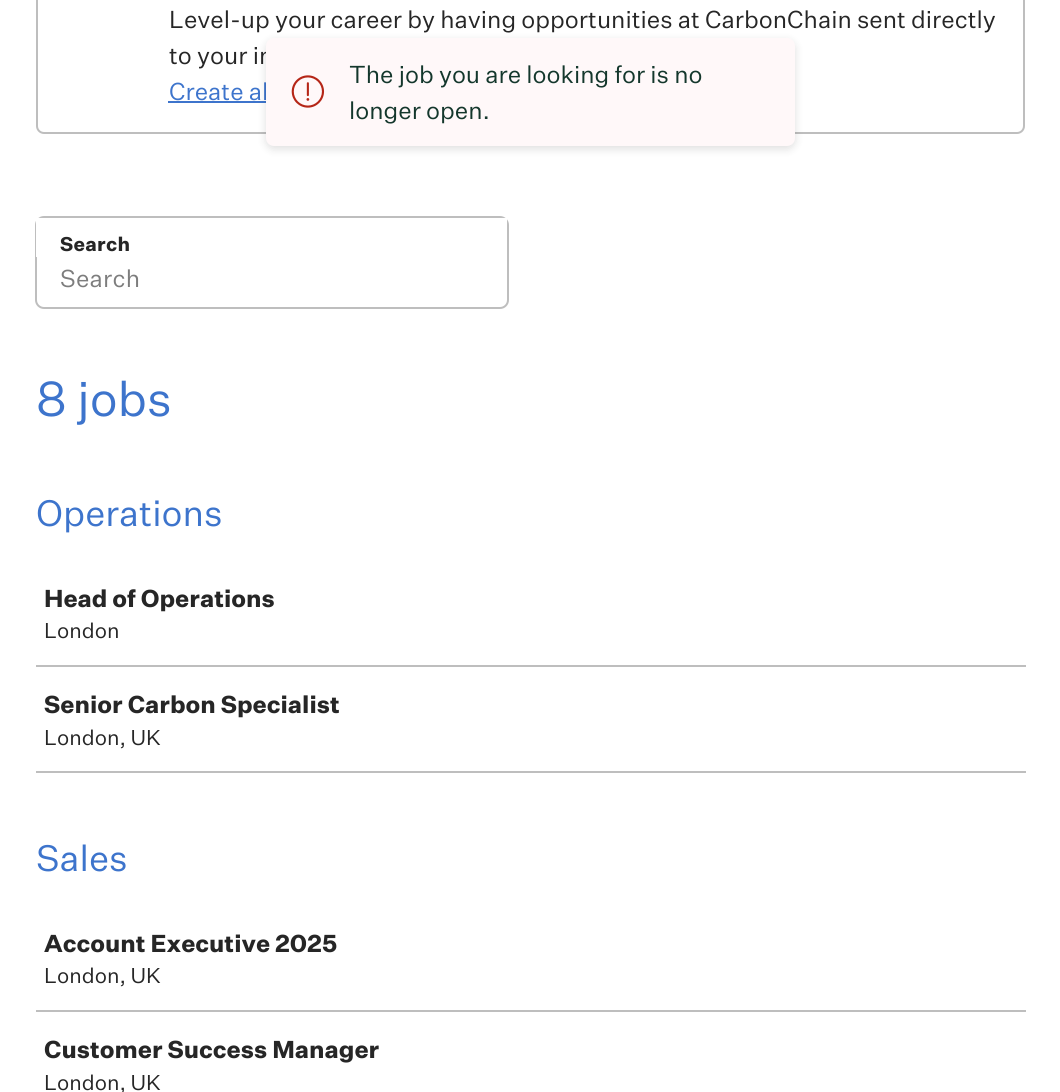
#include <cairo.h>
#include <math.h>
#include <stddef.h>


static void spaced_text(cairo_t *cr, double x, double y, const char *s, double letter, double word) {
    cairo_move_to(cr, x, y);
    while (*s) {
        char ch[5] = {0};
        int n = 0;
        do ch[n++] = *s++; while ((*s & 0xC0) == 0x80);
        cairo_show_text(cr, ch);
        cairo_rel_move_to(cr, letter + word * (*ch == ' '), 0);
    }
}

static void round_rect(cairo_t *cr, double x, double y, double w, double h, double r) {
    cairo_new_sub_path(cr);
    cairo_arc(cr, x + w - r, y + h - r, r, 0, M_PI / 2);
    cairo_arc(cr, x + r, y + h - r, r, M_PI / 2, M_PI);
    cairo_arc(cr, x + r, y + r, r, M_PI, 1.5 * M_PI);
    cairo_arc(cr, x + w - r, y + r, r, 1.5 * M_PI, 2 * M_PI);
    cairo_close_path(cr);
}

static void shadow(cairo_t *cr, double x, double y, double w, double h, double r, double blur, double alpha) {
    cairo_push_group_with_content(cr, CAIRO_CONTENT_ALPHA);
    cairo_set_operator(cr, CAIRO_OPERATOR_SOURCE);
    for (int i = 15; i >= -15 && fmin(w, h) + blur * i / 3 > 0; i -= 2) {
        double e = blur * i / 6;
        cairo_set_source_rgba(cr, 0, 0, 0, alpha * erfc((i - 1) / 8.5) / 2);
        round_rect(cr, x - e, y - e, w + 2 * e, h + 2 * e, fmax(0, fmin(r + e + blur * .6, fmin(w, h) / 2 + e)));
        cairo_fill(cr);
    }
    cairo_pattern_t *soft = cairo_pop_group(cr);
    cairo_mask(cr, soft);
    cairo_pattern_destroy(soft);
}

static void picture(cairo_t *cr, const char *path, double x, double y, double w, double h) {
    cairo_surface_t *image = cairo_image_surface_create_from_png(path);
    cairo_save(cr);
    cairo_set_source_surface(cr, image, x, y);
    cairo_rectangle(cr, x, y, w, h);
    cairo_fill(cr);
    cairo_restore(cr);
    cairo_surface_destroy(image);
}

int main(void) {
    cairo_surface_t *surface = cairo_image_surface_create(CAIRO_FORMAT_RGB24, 1060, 1092);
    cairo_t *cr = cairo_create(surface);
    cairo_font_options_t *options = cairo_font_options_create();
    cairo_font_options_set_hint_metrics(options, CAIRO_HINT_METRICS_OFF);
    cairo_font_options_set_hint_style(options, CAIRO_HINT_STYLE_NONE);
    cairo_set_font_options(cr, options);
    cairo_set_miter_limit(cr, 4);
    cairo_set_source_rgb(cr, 1, 1, 1);
    cairo_paint(cr);
    round_rect(cr, 37, -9, 987, 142, 7);
    cairo_set_source_rgb(cr, 0.745, 0.745, 0.745);
    cairo_stroke(cr);
    cairo_select_font_face(cr, "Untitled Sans", CAIRO_FONT_SLANT_NORMAL, CAIRO_FONT_WEIGHT_NORMAL);
    cairo_set_font_size(cr, 24);
    cairo_set_source_rgb(cr, 0.149, 0.149, 0.149);
    cairo_move_to(cr, 169, 28);
    cairo_show_text(cr, "Level-up your career by having opportunities at CarbonChain sent directly");
    cairo_move_to(cr, 169, 64);
    cairo_show_text(cr, "to your in");
    cairo_set_source_rgb(cr, 0.239, 0.455, 0.8);
    cairo_move_to(cr, 169, 100);
    cairo_show_text(cr, "Create al");
    cairo_rectangle(cr, 168, 101, 98, 2);
    cairo_fill(cr);
    round_rect(cr, 36, 217, 472, 91, 8);
    cairo_set_source_rgb(cr, 0.745, 0.745, 0.745);
    cairo_stroke(cr);
    cairo_set_source_rgb(cr, 1, 1, 1);
    cairo_rectangle(cr, 36, 218, 471, 39);
    cairo_fill(cr);
    cairo_select_font_face(cr, "Untitled Sans", CAIRO_FONT_SLANT_NORMAL, CAIRO_FONT_WEIGHT_BOLD);
    cairo_set_font_size(cr, 19.5);
    cairo_set_source_rgb(cr, 0.149, 0.149, 0.149);
    spaced_text(cr, 60, 251, "Search", 0.25, 0);
    cairo_select_font_face(cr, "Untitled Sans", CAIRO_FONT_SLANT_NORMAL, CAIRO_FONT_WEIGHT_NORMAL);
    cairo_set_font_size(cr, 24);
    cairo_set_source_rgb(cr, 0.49, 0.49, 0.49);
    spaced_text(cr, 60, 287, "Search", 0.25, 0);
    cairo_set_font_size(cr, 48);
    cairo_set_source_rgb(cr, 0.239, 0.455, 0.8);
    cairo_move_to(cr, 36, 416);
    cairo_show_text(cr, "8 jobs");
    cairo_set_font_size(cr, 36);
    cairo_move_to(cr, 36, 526);
    cairo_show_text(cr, "Operations");
    cairo_set_source_rgb(cr, 0.745, 0.745, 0.745);
    cairo_rectangle(cr, 36, 665, 990, 2);
    cairo_fill(cr);
    cairo_select_font_face(cr, "Untitled Sans", CAIRO_FONT_SLANT_NORMAL, CAIRO_FONT_WEIGHT_BOLD);
    cairo_set_font_size(cr, 24);
    cairo_set_source_rgb(cr, 0.149, 0.149, 0.149);
    cairo_move_to(cr, 44, 607);
    cairo_show_text(cr, "Head of Operations");
    cairo_select_font_face(cr, "Untitled Sans", CAIRO_FONT_SLANT_NORMAL, CAIRO_FONT_WEIGHT_NORMAL);
    cairo_set_font_size(cr, 21);
    cairo_move_to(cr, 44, 638);
    cairo_show_text(cr, "London");
    cairo_set_source_rgb(cr, 0.745, 0.745, 0.745);
    cairo_rectangle(cr, 36, 771, 990, 2);
    cairo_fill(cr);
    cairo_select_font_face(cr, "Untitled Sans", CAIRO_FONT_SLANT_NORMAL, CAIRO_FONT_WEIGHT_BOLD);
    cairo_set_font_size(cr, 24);
    cairo_set_source_rgb(cr, 0.149, 0.149, 0.149);
    cairo_move_to(cr, 44, 713);
    cairo_show_text(cr, "Senior Carbon Specialist");
    cairo_select_font_face(cr, "Untitled Sans", CAIRO_FONT_SLANT_NORMAL, CAIRO_FONT_WEIGHT_NORMAL);
    cairo_set_font_size(cr, 21);
    cairo_move_to(cr, 44, 745);
    cairo_show_text(cr, "London, UK");
    cairo_set_font_size(cr, 36);
    cairo_set_source_rgb(cr, 0.239, 0.455, 0.8);
    cairo_move_to(cr, 36, 871);
    cairo_show_text(cr, "Sales");
    cairo_set_source_rgb(cr, 0.745, 0.745, 0.745);
    cairo_rectangle(cr, 36, 1010, 990, 2);
    cairo_fill(cr);
    cairo_select_font_face(cr, "Untitled Sans", CAIRO_FONT_SLANT_NORMAL, CAIRO_FONT_WEIGHT_BOLD);
    cairo_set_font_size(cr, 24);
    cairo_set_source_rgb(cr, 0.149, 0.149, 0.149);
    cairo_move_to(cr, 44, 952);
    cairo_show_text(cr, "Account Executive 2025");
    cairo_select_font_face(cr, "Untitled Sans", CAIRO_FONT_SLANT_NORMAL, CAIRO_FONT_WEIGHT_NORMAL);
    cairo_set_font_size(cr, 21);
    cairo_move_to(cr, 44, 983);
    cairo_show_text(cr, "London, UK");
    cairo_select_font_face(cr, "Untitled Sans", CAIRO_FONT_SLANT_NORMAL, CAIRO_FONT_WEIGHT_BOLD);
    cairo_set_font_size(cr, 24);
    cairo_move_to(cr, 44, 1058);
    cairo_show_text(cr, "Customer Success Manager");
    cairo_select_font_face(cr, "Untitled Sans", CAIRO_FONT_SLANT_NORMAL, CAIRO_FONT_WEIGHT_NORMAL);
    cairo_set_font_size(cr, 21);
    cairo_move_to(cr, 44, 1090);
    cairo_show_text(cr, "London, UK");
    cairo_set_source_rgb(cr, 0, 0, 0);
    shadow(cr, 266, 41, 529, 108, 8, 4.5, 0.13);
    cairo_set_source_rgb(cr, 1, 0.969, 0.973);
    round_rect(cr, 266, 38, 529, 108, 8);
    cairo_fill(cr);
    picture(cr, "img1.png", 291, 75, 34, 33);
    cairo_set_font_size(cr, 24);
    cairo_set_source_rgb(cr, 0.082, 0.216, 0.173);
    cairo_move_to(cr, 349, 83);
    cairo_show_text(cr, "The job you are looking for is no");
    cairo_move_to(cr, 349, 119);
    cairo_show_text(cr, "longer open.");
    cairo_surface_write_to_png(surface, "page.png");
    cairo_font_options_destroy(options);
    cairo_destroy(cr);
    cairo_surface_destroy(surface);
    return 0;
}
